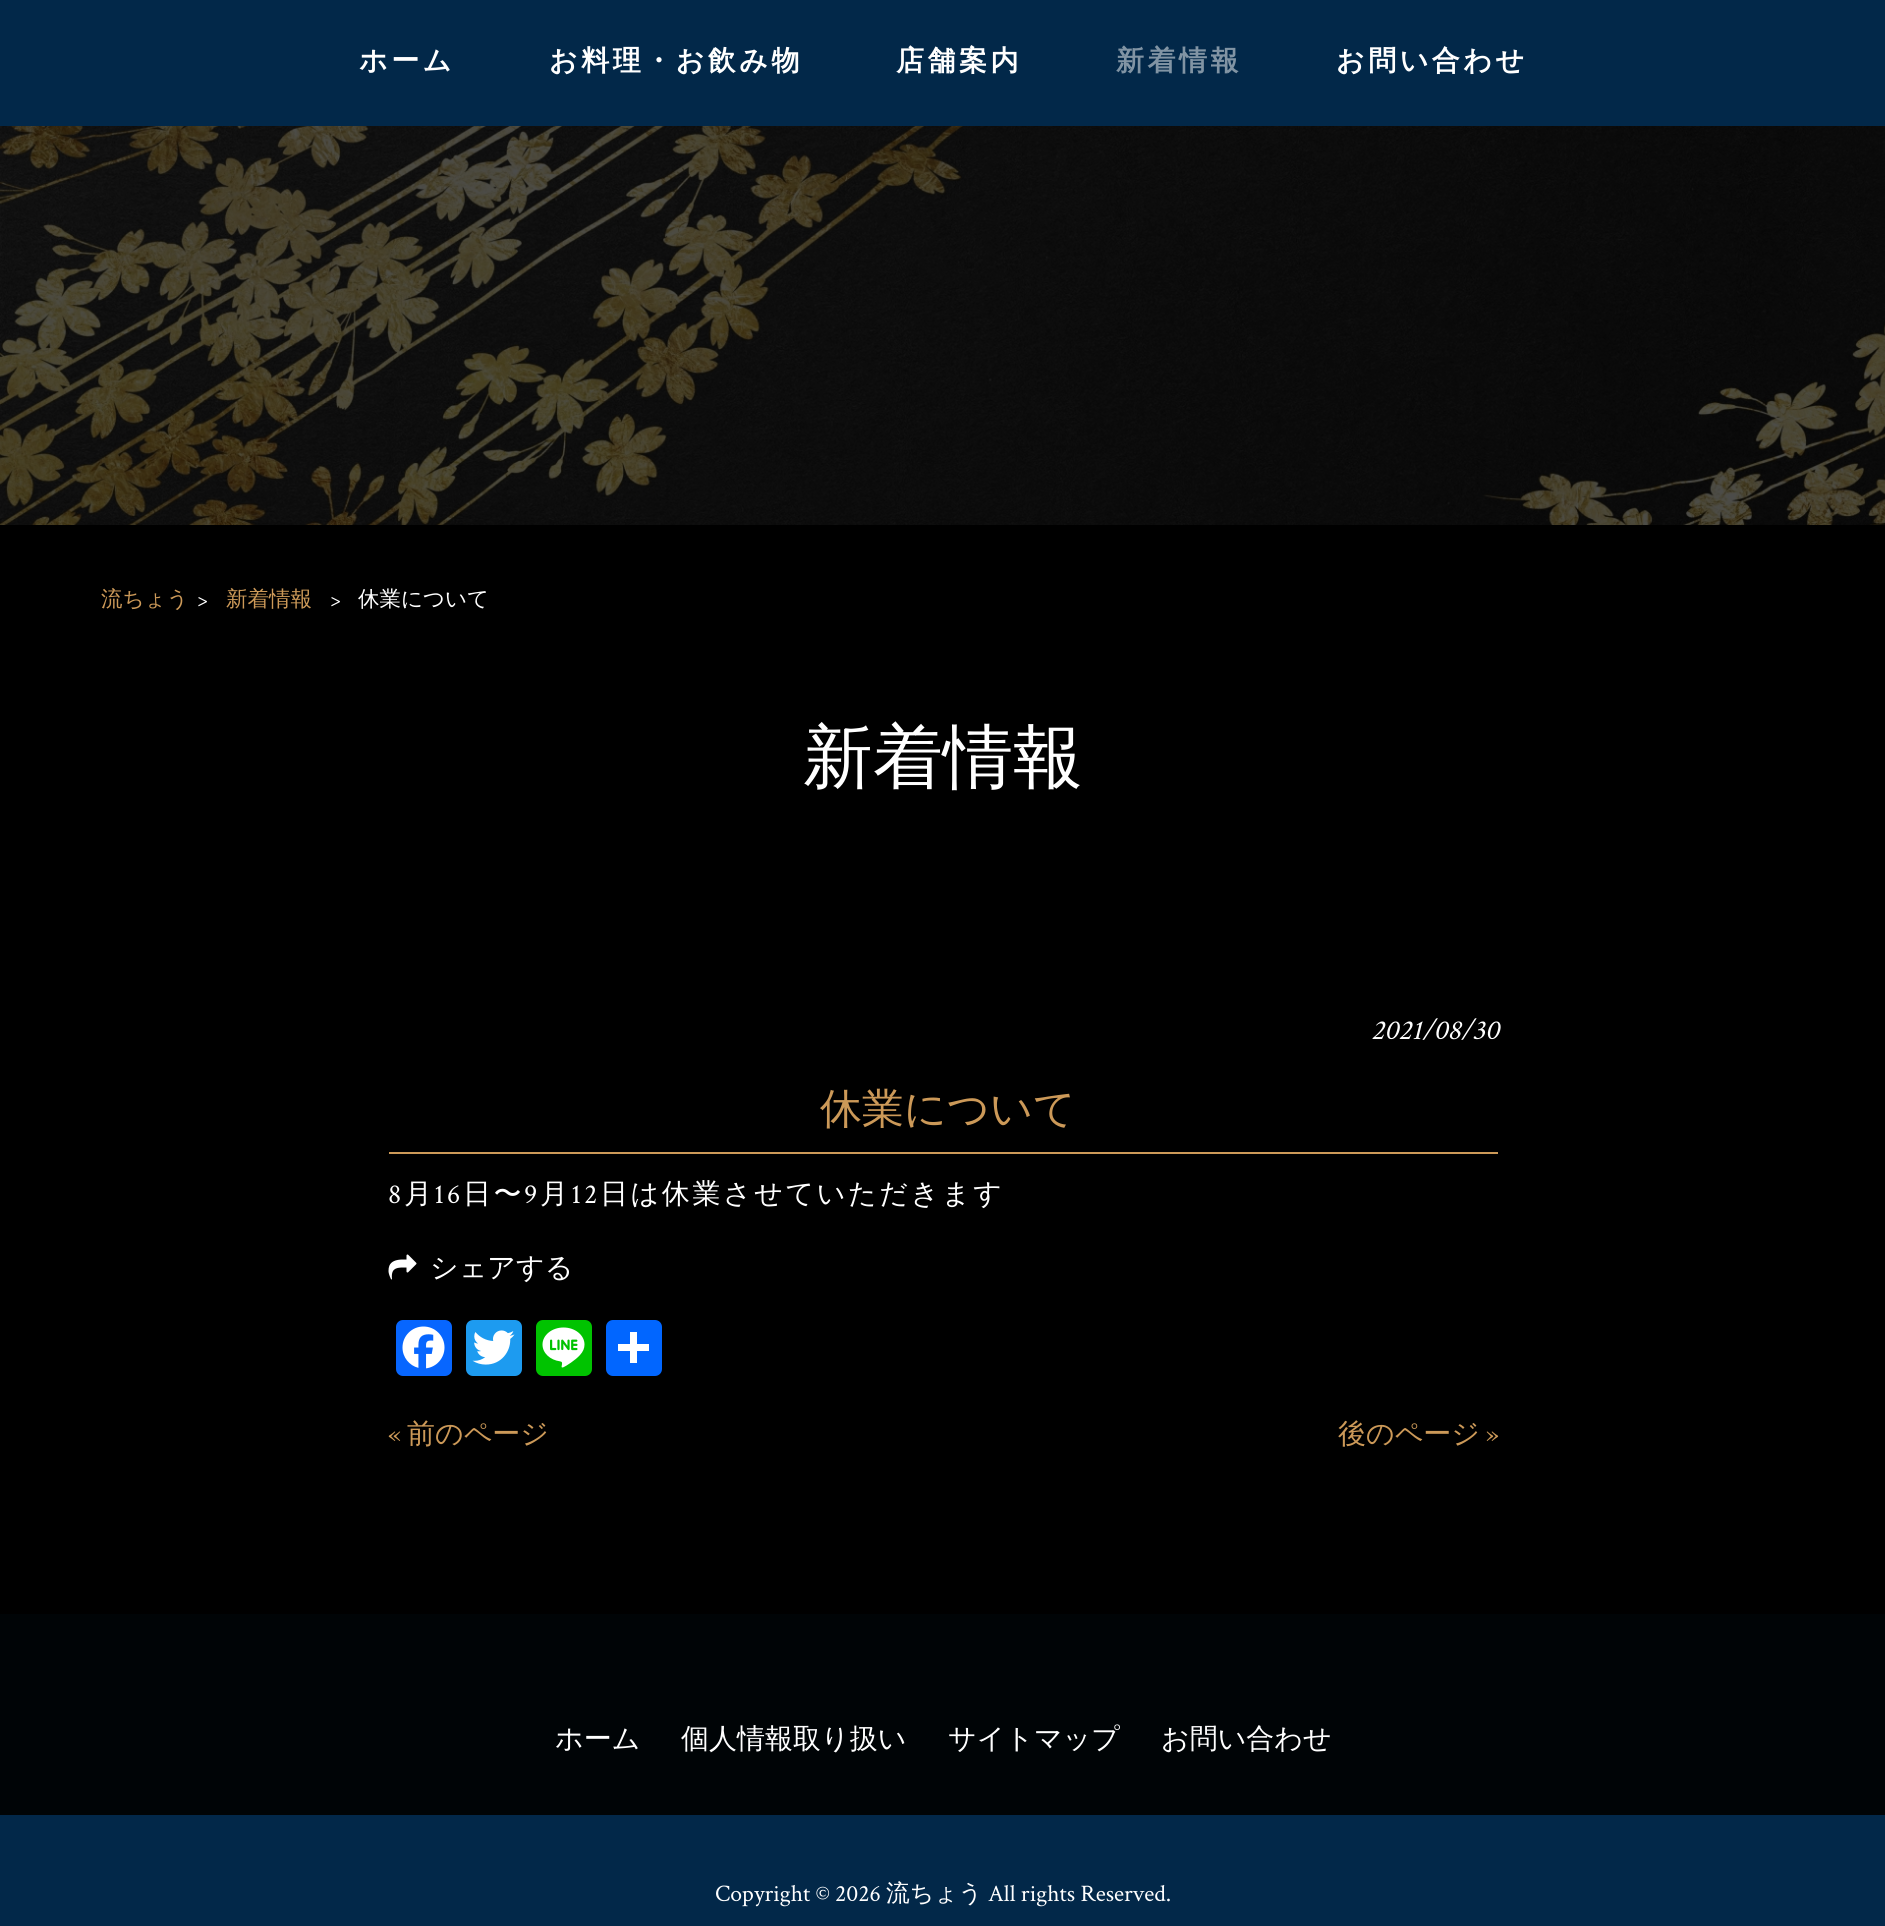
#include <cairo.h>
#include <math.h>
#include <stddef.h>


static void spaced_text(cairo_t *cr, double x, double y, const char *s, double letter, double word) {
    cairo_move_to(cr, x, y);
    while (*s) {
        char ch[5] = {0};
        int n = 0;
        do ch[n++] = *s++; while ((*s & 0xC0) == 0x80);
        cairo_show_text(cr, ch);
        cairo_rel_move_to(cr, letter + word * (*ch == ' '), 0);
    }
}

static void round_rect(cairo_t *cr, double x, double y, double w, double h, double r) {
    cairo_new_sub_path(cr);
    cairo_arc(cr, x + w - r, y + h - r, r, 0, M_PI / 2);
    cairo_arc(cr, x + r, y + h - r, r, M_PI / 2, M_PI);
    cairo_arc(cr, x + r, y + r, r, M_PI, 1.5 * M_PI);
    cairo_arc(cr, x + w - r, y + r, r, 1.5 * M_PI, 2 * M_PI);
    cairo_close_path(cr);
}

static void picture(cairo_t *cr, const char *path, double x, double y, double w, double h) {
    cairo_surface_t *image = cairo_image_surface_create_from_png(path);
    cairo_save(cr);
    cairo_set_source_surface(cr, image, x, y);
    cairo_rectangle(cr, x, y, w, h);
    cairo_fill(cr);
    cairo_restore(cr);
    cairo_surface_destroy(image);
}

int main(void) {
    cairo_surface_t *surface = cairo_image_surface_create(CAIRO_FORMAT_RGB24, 1885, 1926);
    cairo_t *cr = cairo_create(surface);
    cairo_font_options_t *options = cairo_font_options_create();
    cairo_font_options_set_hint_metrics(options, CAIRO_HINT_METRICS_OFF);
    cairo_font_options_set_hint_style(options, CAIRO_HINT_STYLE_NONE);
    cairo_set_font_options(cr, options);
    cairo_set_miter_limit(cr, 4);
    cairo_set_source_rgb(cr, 0, 0, 0);
    cairo_paint(cr);
    picture(cr, "img1.png", 0, 126, 1885, 399);
    cairo_set_source_rgb(cr, 0.008, 0.157, 0.286);
    cairo_rectangle(cr, 0, 0, 1885, 126);
    cairo_fill(cr);
    cairo_select_font_face(cr, "WenQuanYi Zen Hei", CAIRO_FONT_SLANT_NORMAL, CAIRO_FONT_WEIGHT_BOLD);
    cairo_set_font_size(cr, 28);
    cairo_set_source_rgb(cr, 1, 1, 1);
    spaced_text(cr, 359, 70, "ホーム", 3.5, 0);
    spaced_text(cr, 549, 70, "お料理・お飲み物", 3.5, 0);
    spaced_text(cr, 896, 70, "店舗案内", 3.5, 0);
    cairo_set_source_rgb(cr, 0.506, 0.58, 0.643);
    spaced_text(cr, 1116, 70, "新着情報", 3.5, 0);
    cairo_set_source_rgb(cr, 1, 1, 1);
    spaced_text(cr, 1336, 70, "お問い合わせ", 3.5, 0);
    cairo_select_font_face(cr, "WenQuanYi Zen Hei Medium", CAIRO_FONT_SLANT_NORMAL, CAIRO_FONT_WEIGHT_NORMAL);
    cairo_set_font_size(cr, 21.5);
    cairo_set_source_rgb(cr, 0.8, 0.6, 0.345);
    cairo_move_to(cr, 101, 606);
    cairo_show_text(cr, "流ちょう");
    cairo_select_font_face(cr, "Crimson Text", CAIRO_FONT_SLANT_NORMAL, CAIRO_FONT_WEIGHT_NORMAL);
    cairo_set_source_rgb(cr, 1, 1, 1);
    cairo_move_to(cr, 197, 606);
    cairo_show_text(cr, ">");
    cairo_select_font_face(cr, "WenQuanYi Zen Hei Medium", CAIRO_FONT_SLANT_NORMAL, CAIRO_FONT_WEIGHT_NORMAL);
    cairo_set_source_rgb(cr, 0.8, 0.6, 0.345);
    cairo_move_to(cr, 226, 606);
    cairo_show_text(cr, "新着情報");
    cairo_select_font_face(cr, "Crimson Text", CAIRO_FONT_SLANT_NORMAL, CAIRO_FONT_WEIGHT_NORMAL);
    cairo_set_source_rgb(cr, 1, 1, 1);
    cairo_move_to(cr, 330, 606);
    cairo_show_text(cr, ">");
    cairo_select_font_face(cr, "WenQuanYi Zen Hei Medium", CAIRO_FONT_SLANT_NORMAL, CAIRO_FONT_WEIGHT_NORMAL);
    cairo_move_to(cr, 358, 606);
    cairo_show_text(cr, "休業について");
    cairo_set_font_size(cr, 70);
    cairo_move_to(cr, 803, 781);
    cairo_show_text(cr, "新着情報");
    cairo_select_font_face(cr, "Crimson Text", CAIRO_FONT_SLANT_ITALIC, CAIRO_FONT_WEIGHT_NORMAL);
    cairo_set_font_size(cr, 28);
    cairo_move_to(cr, 1371, 1039);
    cairo_show_text(cr, "2021/08/30");
    cairo_set_source_rgb(cr, 0.8, 0.6, 0.345);
    cairo_rectangle(cr, 389, 1152, 1109, 2);
    cairo_fill(cr);
    cairo_select_font_face(cr, "WenQuanYi Zen Hei Medium", CAIRO_FONT_SLANT_NORMAL, CAIRO_FONT_WEIGHT_NORMAL);
    cairo_set_font_size(cr, 42);
    cairo_move_to(cr, 820, 1123);
    cairo_show_text(cr, "休業について");
    cairo_select_font_face(cr, "Crimson Text", CAIRO_FONT_SLANT_NORMAL, CAIRO_FONT_WEIGHT_NORMAL);
    cairo_set_font_size(cr, 28);
    cairo_set_source_rgb(cr, 1, 1, 1);
    spaced_text(cr, 388, 1203, "8", 2.6, 0);
    cairo_select_font_face(cr, "WenQuanYi Zen Hei Medium", CAIRO_FONT_SLANT_NORMAL, CAIRO_FONT_WEIGHT_NORMAL);
    spaced_text(cr, 404, 1203, "月", 2.6, 0);
    cairo_select_font_face(cr, "Crimson Text", CAIRO_FONT_SLANT_NORMAL, CAIRO_FONT_WEIGHT_NORMAL);
    spaced_text(cr, 434, 1203, "16", 2.6, 0);
    cairo_select_font_face(cr, "WenQuanYi Zen Hei Medium", CAIRO_FONT_SLANT_NORMAL, CAIRO_FONT_WEIGHT_NORMAL);
    spaced_text(cr, 463, 1203, "日〜", 2.6, 0);
    cairo_select_font_face(cr, "Crimson Text", CAIRO_FONT_SLANT_NORMAL, CAIRO_FONT_WEIGHT_NORMAL);
    spaced_text(cr, 524, 1203, "9", 2.6, 0);
    cairo_select_font_face(cr, "WenQuanYi Zen Hei Medium", CAIRO_FONT_SLANT_NORMAL, CAIRO_FONT_WEIGHT_NORMAL);
    spaced_text(cr, 540, 1203, "月", 2.6, 0);
    cairo_select_font_face(cr, "Crimson Text", CAIRO_FONT_SLANT_NORMAL, CAIRO_FONT_WEIGHT_NORMAL);
    spaced_text(cr, 571, 1203, "12", 2.6, 0);
    cairo_select_font_face(cr, "WenQuanYi Zen Hei Medium", CAIRO_FONT_SLANT_NORMAL, CAIRO_FONT_WEIGHT_NORMAL);
    spaced_text(cr, 600, 1203, "日は休業させていただきます", 2.6, 0);
    picture(cr, "img2.png", 388, 1254, 29, 26);
    cairo_move_to(cr, 430, 1277);
    cairo_show_text(cr, "シェアする");
    cairo_set_source_rgb(cr, 0.031, 0.4, 1);
    round_rect(cr, 396, 1320, 56, 56, 7);
    cairo_fill(cr);
    picture(cr, "img3.png", 402, 1326, 43, 43);
    cairo_set_source_rgb(cr, 0.114, 0.608, 0.941);
    round_rect(cr, 466, 1320, 56, 56, 7);
    cairo_fill(cr);
    picture(cr, "img4.png", 472, 1330, 43, 35);
    cairo_set_source_rgb(cr, 0, 0.765, 0);
    round_rect(cr, 536, 1320, 56, 56, 7);
    cairo_fill(cr);
    picture(cr, "img5.png", 542, 1327, 43, 41);
    cairo_set_source_rgb(cr, 0.004, 0.4, 1);
    round_rect(cr, 606, 1320, 56, 56, 7);
    cairo_fill(cr);
    cairo_set_source_rgb(cr, 1, 1, 1);
    cairo_rectangle(cr, 630, 1332, 7, 31);
    cairo_fill(cr);
    cairo_rectangle(cr, 618, 1344, 31, 7);
    cairo_fill(cr);
    cairo_select_font_face(cr, "Crimson Text", CAIRO_FONT_SLANT_NORMAL, CAIRO_FONT_WEIGHT_NORMAL);
    cairo_set_source_rgb(cr, 0.8, 0.6, 0.345);
    cairo_move_to(cr, 388, 1443);
    cairo_show_text(cr, "«");
    cairo_select_font_face(cr, "WenQuanYi Zen Hei Medium", CAIRO_FONT_SLANT_NORMAL, CAIRO_FONT_WEIGHT_NORMAL);
    cairo_move_to(cr, 407, 1443);
    cairo_show_text(cr, "前のページ");
    cairo_move_to(cr, 1338, 1443);
    cairo_show_text(cr, "後のページ");
    cairo_select_font_face(cr, "Crimson Text", CAIRO_FONT_SLANT_NORMAL, CAIRO_FONT_WEIGHT_NORMAL);
    cairo_move_to(cr, 1486, 1443);
    cairo_show_text(cr, "»");
    cairo_set_source_rgb(cr, 0, 0.016, 0.027);
    cairo_rectangle(cr, 0, 1614, 1885, 201);
    cairo_fill(cr);
    cairo_select_font_face(cr, "WenQuanYi Zen Hei Medium", CAIRO_FONT_SLANT_NORMAL, CAIRO_FONT_WEIGHT_NORMAL);
    cairo_set_source_rgb(cr, 1, 1, 1);
    cairo_move_to(cr, 555, 1748);
    cairo_show_text(cr, "ホーム");
    cairo_move_to(cr, 681, 1748);
    cairo_show_text(cr, "個人情報取り扱い");
    cairo_move_to(cr, 948, 1748);
    cairo_show_text(cr, "サイトマップ");
    cairo_move_to(cr, 1161, 1748);
    cairo_show_text(cr, "お問い合わせ");
    cairo_set_source_rgb(cr, 0.008, 0.157, 0.286);
    cairo_rectangle(cr, 0, 1815, 1885, 111);
    cairo_fill(cr);
    cairo_select_font_face(cr, "Crimson Text", CAIRO_FONT_SLANT_NORMAL, CAIRO_FONT_WEIGHT_NORMAL);
    cairo_set_font_size(cr, 23.75);
    cairo_set_source_rgb(cr, 1, 1, 1);
    cairo_move_to(cr, 715, 1901);
    cairo_show_text(cr, "Copyright © 2026");
    cairo_select_font_face(cr, "WenQuanYi Zen Hei Medium", CAIRO_FONT_SLANT_NORMAL, CAIRO_FONT_WEIGHT_NORMAL);
    cairo_move_to(cr, 886, 1901);
    cairo_show_text(cr, "流ちょう");
    cairo_select_font_face(cr, "Crimson Text", CAIRO_FONT_SLANT_NORMAL, CAIRO_FONT_WEIGHT_NORMAL);
    cairo_move_to(cr, 988, 1901);
    cairo_show_text(cr, "All rights Reserved.");
    cairo_surface_write_to_png(surface, "page.png");
    cairo_font_options_destroy(options);
    cairo_destroy(cr);
    cairo_surface_destroy(surface);
    return 0;
}
